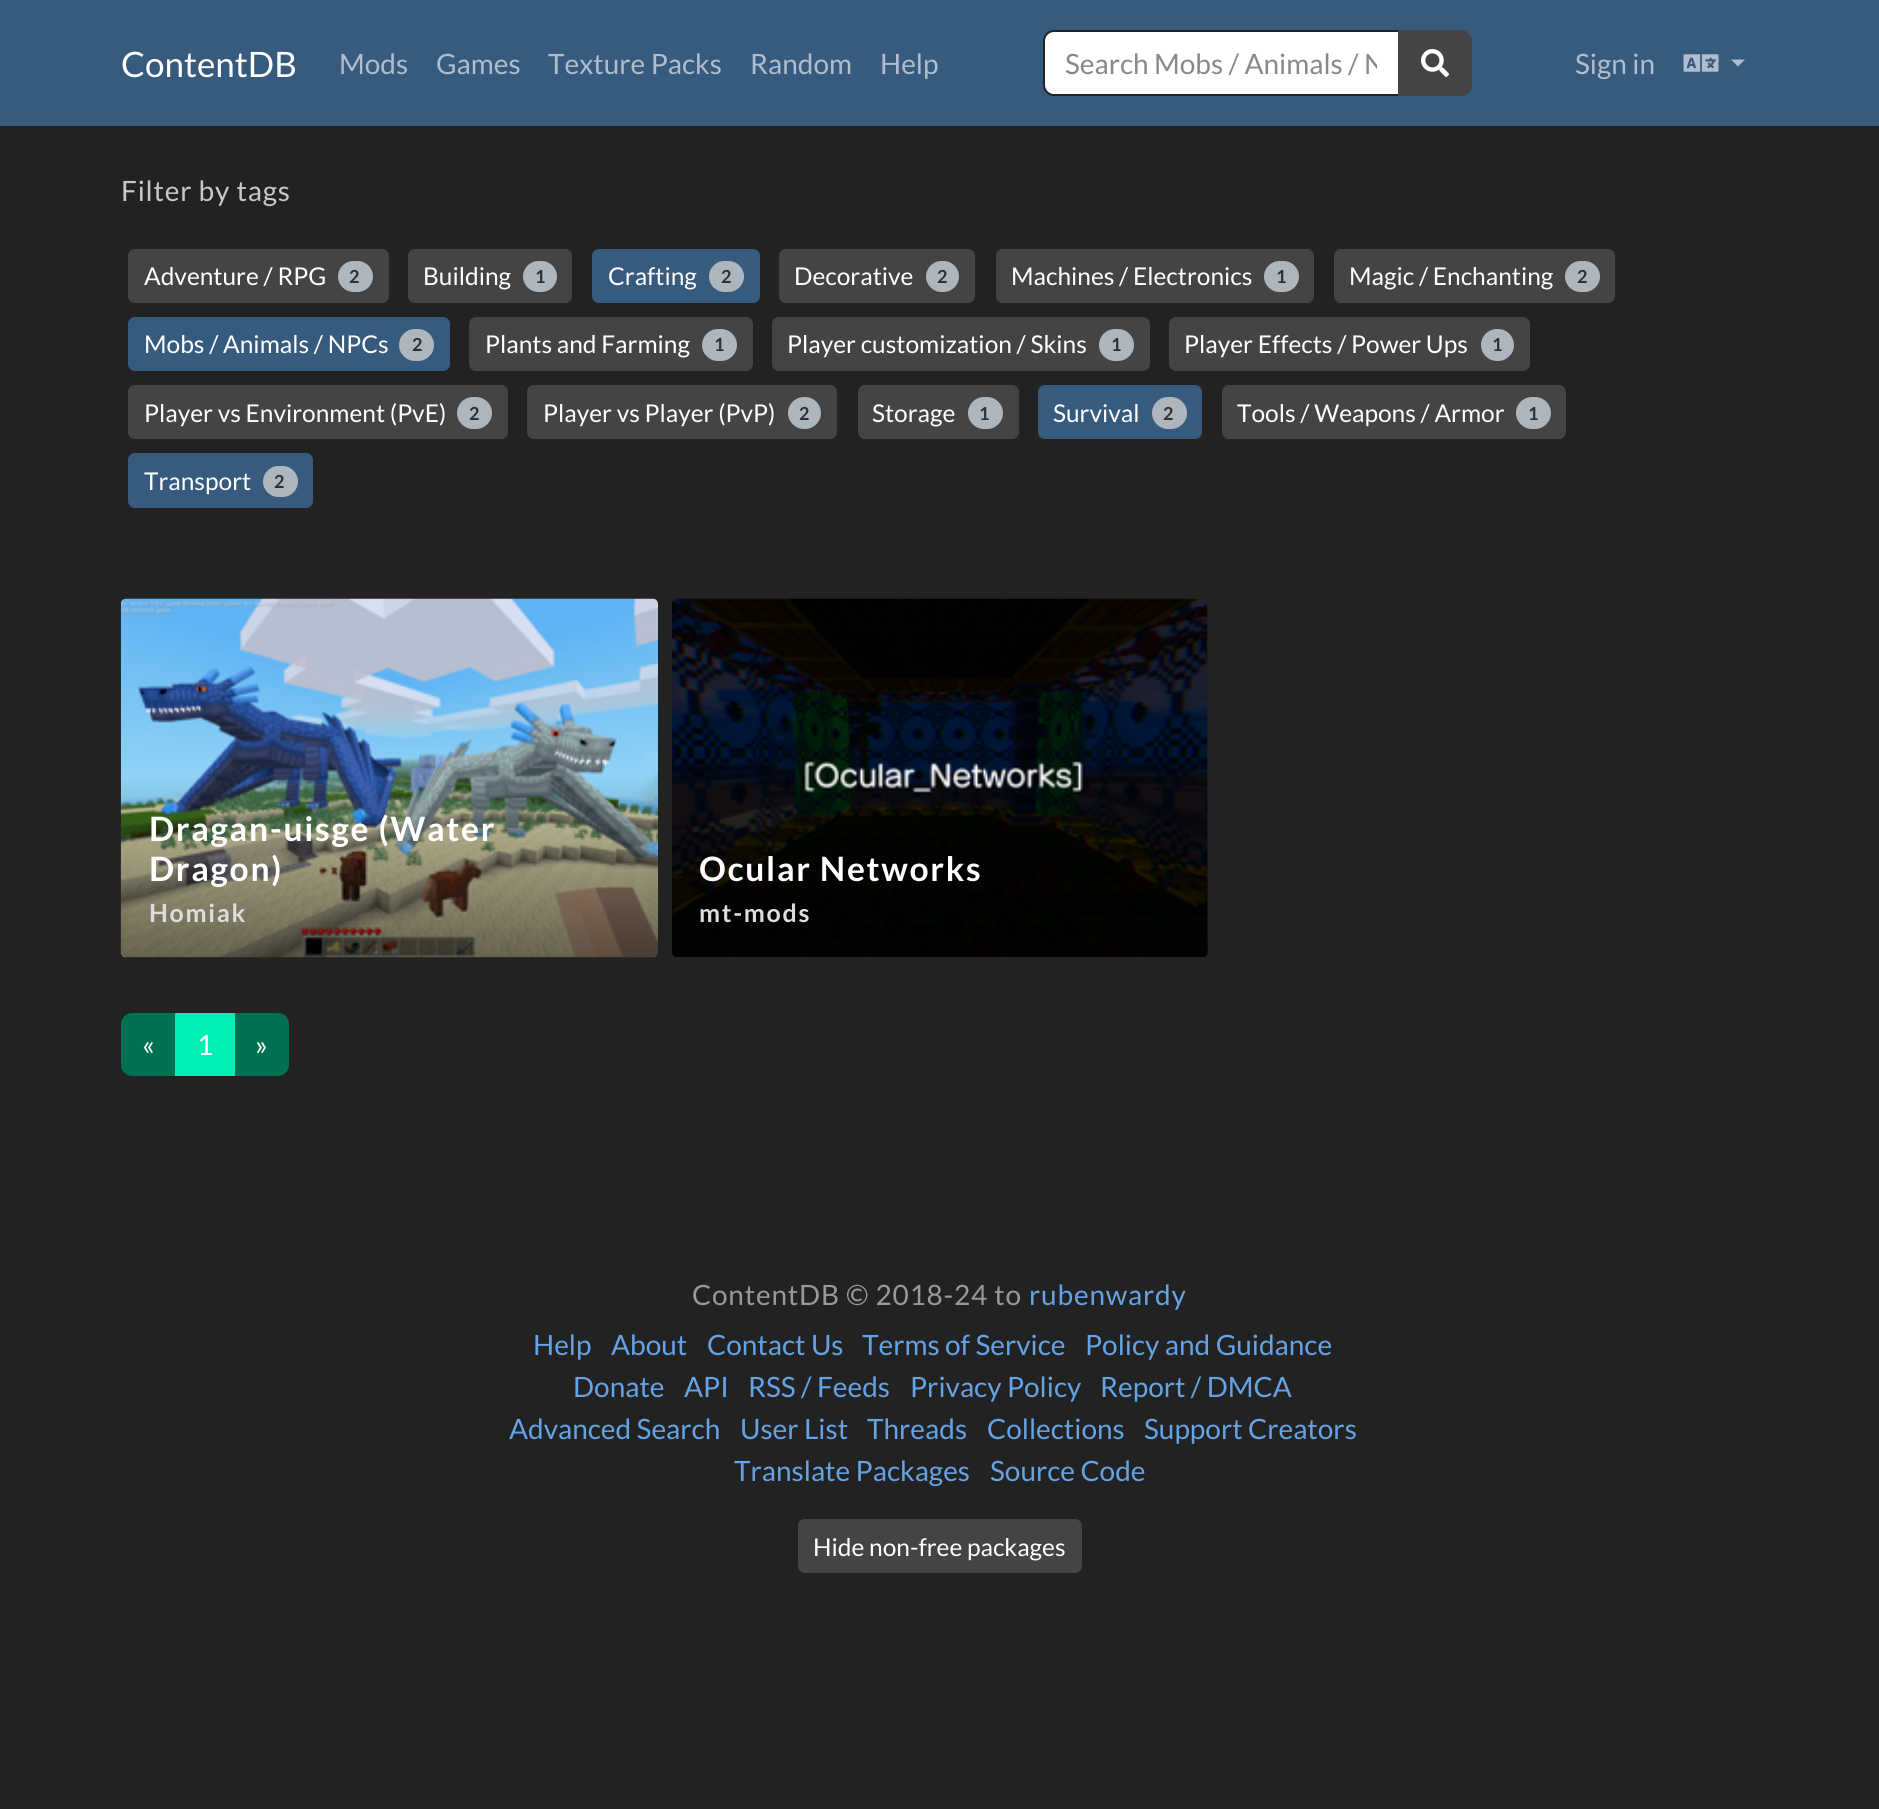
#include <cairo.h>
#include <math.h>
#include <stddef.h>


static void spaced_text(cairo_t *cr, double x, double y, const char *s, double letter, double word) {
    cairo_move_to(cr, x, y);
    while (*s) {
        char ch[5] = {0};
        int n = 0;
        do ch[n++] = *s++; while ((*s & 0xC0) == 0x80);
        cairo_show_text(cr, ch);
        cairo_rel_move_to(cr, letter + word * (*ch == ' '), 0);
    }
}

static void round_rect(cairo_t *cr, double x, double y, double w, double h, double r) {
    cairo_new_sub_path(cr);
    cairo_arc(cr, x + w - r, y + h - r, r, 0, M_PI / 2);
    cairo_arc(cr, x + r, y + h - r, r, M_PI / 2, M_PI);
    cairo_arc(cr, x + r, y + r, r, M_PI, 1.5 * M_PI);
    cairo_arc(cr, x + w - r, y + r, r, 1.5 * M_PI, 2 * M_PI);
    cairo_close_path(cr);
}

static void picture(cairo_t *cr, const char *path, double x, double y, double w, double h) {
    cairo_surface_t *image = cairo_image_surface_create_from_png(path);
    cairo_save(cr);
    cairo_set_source_surface(cr, image, x, y);
    cairo_rectangle(cr, x, y, w, h);
    cairo_fill(cr);
    cairo_restore(cr);
    cairo_surface_destroy(image);
}

int main(void) {
    cairo_surface_t *surface = cairo_image_surface_create(CAIRO_FORMAT_RGB24, 1879, 1809);
    cairo_t *cr = cairo_create(surface);
    cairo_font_options_t *options = cairo_font_options_create();
    cairo_font_options_set_hint_metrics(options, CAIRO_HINT_METRICS_OFF);
    cairo_font_options_set_hint_style(options, CAIRO_HINT_STYLE_NONE);
    cairo_set_font_options(cr, options);
    cairo_set_miter_limit(cr, 4);
    cairo_pattern_t *gradient;
    cairo_set_source_rgb(cr, 0.133, 0.133, 0.133);
    cairo_paint(cr);
    cairo_set_source_rgb(cr, 0.216, 0.353, 0.498);
    cairo_rectangle(cr, 0, 0, 1879, 126);
    cairo_fill(cr);
    cairo_select_font_face(cr, "Lato", CAIRO_FONT_SLANT_NORMAL, CAIRO_FONT_WEIGHT_NORMAL);
    cairo_set_font_size(cr, 35);
    cairo_set_source_rgb(cr, 1, 1, 1);
    cairo_move_to(cr, 121, 77);
    cairo_show_text(cr, "ContentDB");
    cairo_set_font_size(cr, 28);
    cairo_set_source_rgb(cr, 0.686, 0.741, 0.8);
    cairo_move_to(cr, 339, 74);
    cairo_show_text(cr, "Mods");
    cairo_move_to(cr, 436, 74);
    cairo_show_text(cr, "Games");
    cairo_move_to(cr, 548, 74);
    cairo_show_text(cr, "Texture Packs");
    cairo_move_to(cr, 750, 74);
    cairo_show_text(cr, "Random");
    cairo_move_to(cr, 880, 74);
    cairo_show_text(cr, "Help");
    cairo_set_source_rgb(cr, 1, 1, 1);
    cairo_new_path(cr);
    cairo_move_to(cr, 1054, 31);
    cairo_line_to(cr, 1399, 31);
    cairo_line_to(cr, 1399, 95);
    cairo_line_to(cr, 1054, 95);
    cairo_curve_to(cr, 1048.5, 95, 1044, 90.5, 1044, 85);
    cairo_line_to(cr, 1044, 41);
    cairo_curve_to(cr, 1044, 35.5, 1048.5, 31, 1054, 31);
    cairo_close_path(cr);
    cairo_fill_preserve(cr);
    cairo_set_source_rgb(cr, 0.133, 0.133, 0.133);
    cairo_stroke(cr);
    cairo_save(cr);
    cairo_rectangle(cr, 1066, 46, 311, 33);
    cairo_clip(cr);
    cairo_set_source_rgb(cr, 0.533, 0.533, 0.533);
    cairo_move_to(cr, 1065, 74);
    cairo_show_text(cr, "Search Mobs / Animals / N");
    cairo_restore(cr);
    cairo_set_source_rgb(cr, 0.267, 0.267, 0.267);
    cairo_new_path(cr);
    cairo_move_to(cr, 1399, 31);
    cairo_line_to(cr, 1461, 31);
    cairo_curve_to(cr, 1466.5, 31, 1471, 35.5, 1471, 41);
    cairo_line_to(cr, 1471, 85);
    cairo_curve_to(cr, 1471, 90.5, 1466.5, 95, 1461, 95);
    cairo_line_to(cr, 1399, 95);
    cairo_close_path(cr);
    cairo_fill_preserve(cr);
    cairo_stroke(cr);
    picture(cr, "img1.png", 1421, 49, 28, 28);
    cairo_set_source_rgb(cr, 0.686, 0.741, 0.8);
    cairo_move_to(cr, 1575, 74);
    cairo_show_text(cr, "Sign in");
    picture(cr, "img2.png", 1683, 54, 36, 18);
    cairo_new_path(cr);
    cairo_move_to(cr, 1731, 59.5);
    cairo_line_to(cr, 1745, 59.5);
    cairo_line_to(cr, 1738, 66.5);
    cairo_close_path(cr);
    cairo_fill(cr);
    cairo_set_source_rgb(cr, 0.784, 0.784, 0.784);
    spaced_text(cr, 121, 201, "Filter by tags", 0.8, 0);
    cairo_set_source_rgb(cr, 0.267, 0.267, 0.267);
    round_rect(cr, 129, 250, 259, 52, 6);
    cairo_fill_preserve(cr);
    cairo_stroke(cr);
    cairo_set_font_size(cr, 24.5);
    cairo_set_source_rgb(cr, 1, 1, 1);
    cairo_move_to(cr, 144, 285);
    cairo_show_text(cr, "Adventure / RPG");
    cairo_set_source_rgb(cr, 0.678, 0.71, 0.741);
    round_rect(cr, 338, 261, 35, 31, 15.5);
    cairo_fill(cr);
    cairo_select_font_face(cr, "Lato", CAIRO_FONT_SLANT_NORMAL, CAIRO_FONT_WEIGHT_BOLD);
    cairo_set_font_size(cr, 18);
    cairo_set_source_rgb(cr, 0.188, 0.188, 0.188);
    cairo_move_to(cr, 349, 283);
    cairo_show_text(cr, "2");
    cairo_set_source_rgb(cr, 0.267, 0.267, 0.267);
    round_rect(cr, 409, 250, 162, 52, 6);
    cairo_fill_preserve(cr);
    cairo_stroke(cr);
    cairo_select_font_face(cr, "Lato", CAIRO_FONT_SLANT_NORMAL, CAIRO_FONT_WEIGHT_NORMAL);
    cairo_set_font_size(cr, 24.5);
    cairo_set_source_rgb(cr, 1, 1, 1);
    cairo_move_to(cr, 423, 285);
    cairo_show_text(cr, "Building");
    cairo_set_source_rgb(cr, 0.678, 0.71, 0.741);
    round_rect(cr, 523, 261, 34, 31, 15.5);
    cairo_fill(cr);
    cairo_select_font_face(cr, "Lato", CAIRO_FONT_SLANT_NORMAL, CAIRO_FONT_WEIGHT_BOLD);
    cairo_set_font_size(cr, 18);
    cairo_set_source_rgb(cr, 0.188, 0.188, 0.188);
    cairo_move_to(cr, 535, 283);
    cairo_show_text(cr, "1");
    cairo_set_source_rgb(cr, 0.216, 0.353, 0.498);
    round_rect(cr, 593, 250, 166, 52, 6);
    cairo_fill_preserve(cr);
    cairo_stroke(cr);
    cairo_select_font_face(cr, "Lato", CAIRO_FONT_SLANT_NORMAL, CAIRO_FONT_WEIGHT_NORMAL);
    cairo_set_font_size(cr, 24.5);
    cairo_set_source_rgb(cr, 1, 1, 1);
    cairo_move_to(cr, 608, 285);
    cairo_show_text(cr, "Crafting");
    cairo_set_source_rgb(cr, 0.678, 0.71, 0.741);
    round_rect(cr, 709, 261, 35, 31, 15.5);
    cairo_fill(cr);
    cairo_select_font_face(cr, "Lato", CAIRO_FONT_SLANT_NORMAL, CAIRO_FONT_WEIGHT_BOLD);
    cairo_set_font_size(cr, 18);
    cairo_set_source_rgb(cr, 0.188, 0.188, 0.188);
    cairo_move_to(cr, 721, 283);
    cairo_show_text(cr, "2");
    cairo_set_source_rgb(cr, 0.267, 0.267, 0.267);
    round_rect(cr, 780, 250, 194, 52, 6);
    cairo_fill_preserve(cr);
    cairo_stroke(cr);
    cairo_select_font_face(cr, "Lato", CAIRO_FONT_SLANT_NORMAL, CAIRO_FONT_WEIGHT_NORMAL);
    cairo_set_font_size(cr, 24.5);
    cairo_set_source_rgb(cr, 1, 1, 1);
    cairo_move_to(cr, 794, 285);
    cairo_show_text(cr, "Decorative");
    cairo_set_source_rgb(cr, 0.678, 0.71, 0.741);
    round_rect(cr, 926, 261, 33, 31, 15.5);
    cairo_fill(cr);
    cairo_select_font_face(cr, "Lato", CAIRO_FONT_SLANT_NORMAL, CAIRO_FONT_WEIGHT_BOLD);
    cairo_set_font_size(cr, 18);
    cairo_set_source_rgb(cr, 0.188, 0.188, 0.188);
    cairo_move_to(cr, 937, 283);
    cairo_show_text(cr, "2");
    cairo_set_source_rgb(cr, 0.267, 0.267, 0.267);
    round_rect(cr, 997, 250, 316, 52, 6);
    cairo_fill_preserve(cr);
    cairo_stroke(cr);
    cairo_select_font_face(cr, "Lato", CAIRO_FONT_SLANT_NORMAL, CAIRO_FONT_WEIGHT_NORMAL);
    cairo_set_font_size(cr, 24.5);
    cairo_set_source_rgb(cr, 1, 1, 1);
    cairo_move_to(cr, 1011, 285);
    cairo_show_text(cr, "Machines / Electronics");
    cairo_set_source_rgb(cr, 0.678, 0.71, 0.741);
    round_rect(cr, 1264, 261, 35, 31, 15.5);
    cairo_fill(cr);
    cairo_select_font_face(cr, "Lato", CAIRO_FONT_SLANT_NORMAL, CAIRO_FONT_WEIGHT_BOLD);
    cairo_set_font_size(cr, 18);
    cairo_set_source_rgb(cr, 0.188, 0.188, 0.188);
    cairo_move_to(cr, 1276, 283);
    cairo_show_text(cr, "1");
    cairo_set_source_rgb(cr, 0.267, 0.267, 0.267);
    round_rect(cr, 1335, 250, 279, 52, 6);
    cairo_fill_preserve(cr);
    cairo_stroke(cr);
    cairo_select_font_face(cr, "Lato", CAIRO_FONT_SLANT_NORMAL, CAIRO_FONT_WEIGHT_NORMAL);
    cairo_set_font_size(cr, 24.5);
    cairo_set_source_rgb(cr, 1, 1, 1);
    cairo_move_to(cr, 1349, 285);
    cairo_show_text(cr, "Magic / Enchanting");
    cairo_set_source_rgb(cr, 0.678, 0.71, 0.741);
    round_rect(cr, 1565, 261, 35, 31, 15.5);
    cairo_fill(cr);
    cairo_select_font_face(cr, "Lato", CAIRO_FONT_SLANT_NORMAL, CAIRO_FONT_WEIGHT_BOLD);
    cairo_set_font_size(cr, 18);
    cairo_set_source_rgb(cr, 0.188, 0.188, 0.188);
    cairo_move_to(cr, 1577, 283);
    cairo_show_text(cr, "2");
    cairo_set_source_rgb(cr, 0.216, 0.353, 0.498);
    round_rect(cr, 129, 318, 320, 52, 6);
    cairo_fill_preserve(cr);
    cairo_stroke(cr);
    cairo_select_font_face(cr, "Lato", CAIRO_FONT_SLANT_NORMAL, CAIRO_FONT_WEIGHT_NORMAL);
    cairo_set_font_size(cr, 24.5);
    cairo_set_source_rgb(cr, 1, 1, 1);
    cairo_move_to(cr, 144, 353);
    cairo_show_text(cr, "Mobs / Animals / NPCs");
    cairo_set_source_rgb(cr, 0.678, 0.71, 0.741);
    round_rect(cr, 399, 329, 35, 32, 16);
    cairo_fill(cr);
    cairo_select_font_face(cr, "Lato", CAIRO_FONT_SLANT_NORMAL, CAIRO_FONT_WEIGHT_BOLD);
    cairo_set_font_size(cr, 18);
    cairo_set_source_rgb(cr, 0.188, 0.188, 0.188);
    cairo_move_to(cr, 412, 351);
    cairo_show_text(cr, "2");
    cairo_set_source_rgb(cr, 0.267, 0.267, 0.267);
    round_rect(cr, 470, 318, 282, 52, 6);
    cairo_fill_preserve(cr);
    cairo_stroke(cr);
    cairo_select_font_face(cr, "Lato", CAIRO_FONT_SLANT_NORMAL, CAIRO_FONT_WEIGHT_NORMAL);
    cairo_set_font_size(cr, 24.5);
    cairo_set_source_rgb(cr, 1, 1, 1);
    cairo_move_to(cr, 485, 353);
    cairo_show_text(cr, "Plants and Farming");
    cairo_set_source_rgb(cr, 0.678, 0.71, 0.741);
    round_rect(cr, 702, 329, 35, 32, 16);
    cairo_fill(cr);
    cairo_select_font_face(cr, "Lato", CAIRO_FONT_SLANT_NORMAL, CAIRO_FONT_WEIGHT_BOLD);
    cairo_set_font_size(cr, 18);
    cairo_set_source_rgb(cr, 0.188, 0.188, 0.188);
    cairo_move_to(cr, 714, 351);
    cairo_show_text(cr, "1");
    cairo_set_source_rgb(cr, 0.267, 0.267, 0.267);
    round_rect(cr, 773, 318, 376, 52, 6);
    cairo_fill_preserve(cr);
    cairo_stroke(cr);
    cairo_select_font_face(cr, "Lato", CAIRO_FONT_SLANT_NORMAL, CAIRO_FONT_WEIGHT_NORMAL);
    cairo_set_font_size(cr, 24.5);
    cairo_set_source_rgb(cr, 1, 1, 1);
    cairo_move_to(cr, 787, 353);
    cairo_show_text(cr, "Player customization / Skins");
    cairo_set_source_rgb(cr, 0.678, 0.71, 0.741);
    round_rect(cr, 1099, 329, 35, 32, 16);
    cairo_fill(cr);
    cairo_select_font_face(cr, "Lato", CAIRO_FONT_SLANT_NORMAL, CAIRO_FONT_WEIGHT_BOLD);
    cairo_set_font_size(cr, 18);
    cairo_set_source_rgb(cr, 0.188, 0.188, 0.188);
    cairo_move_to(cr, 1111, 351);
    cairo_show_text(cr, "1");
    cairo_set_source_rgb(cr, 0.267, 0.267, 0.267);
    round_rect(cr, 1170, 318, 359, 52, 6);
    cairo_fill_preserve(cr);
    cairo_stroke(cr);
    cairo_select_font_face(cr, "Lato", CAIRO_FONT_SLANT_NORMAL, CAIRO_FONT_WEIGHT_NORMAL);
    cairo_set_font_size(cr, 24.5);
    cairo_set_source_rgb(cr, 1, 1, 1);
    cairo_move_to(cr, 1184, 353);
    cairo_show_text(cr, "Player Effects / Power Ups");
    cairo_set_source_rgb(cr, 0.678, 0.71, 0.741);
    round_rect(cr, 1481, 329, 33, 32, 16);
    cairo_fill(cr);
    cairo_select_font_face(cr, "Lato", CAIRO_FONT_SLANT_NORMAL, CAIRO_FONT_WEIGHT_BOLD);
    cairo_set_font_size(cr, 18);
    cairo_set_source_rgb(cr, 0.188, 0.188, 0.188);
    cairo_move_to(cr, 1492, 351);
    cairo_show_text(cr, "1");
    cairo_set_source_rgb(cr, 0.267, 0.267, 0.267);
    round_rect(cr, 129, 386, 378, 52, 6);
    cairo_fill_preserve(cr);
    cairo_stroke(cr);
    cairo_select_font_face(cr, "Lato", CAIRO_FONT_SLANT_NORMAL, CAIRO_FONT_WEIGHT_NORMAL);
    cairo_set_font_size(cr, 24.5);
    cairo_set_source_rgb(cr, 1, 1, 1);
    cairo_move_to(cr, 144, 422);
    cairo_show_text(cr, "Player vs Environment (PvE)");
    cairo_set_source_rgb(cr, 0.678, 0.71, 0.741);
    round_rect(cr, 457, 397, 35, 32, 16);
    cairo_fill(cr);
    cairo_select_font_face(cr, "Lato", CAIRO_FONT_SLANT_NORMAL, CAIRO_FONT_WEIGHT_BOLD);
    cairo_set_font_size(cr, 18);
    cairo_set_source_rgb(cr, 0.188, 0.188, 0.188);
    cairo_move_to(cr, 469, 420);
    cairo_show_text(cr, "2");
    cairo_set_source_rgb(cr, 0.267, 0.267, 0.267);
    round_rect(cr, 528, 386, 308, 52, 6);
    cairo_fill_preserve(cr);
    cairo_stroke(cr);
    cairo_select_font_face(cr, "Lato", CAIRO_FONT_SLANT_NORMAL, CAIRO_FONT_WEIGHT_NORMAL);
    cairo_set_font_size(cr, 24.5);
    cairo_set_source_rgb(cr, 1, 1, 1);
    cairo_move_to(cr, 543, 422);
    cairo_show_text(cr, "Player vs Player (PvP)");
    cairo_set_source_rgb(cr, 0.678, 0.71, 0.741);
    round_rect(cr, 788, 397, 33, 32, 16);
    cairo_fill(cr);
    cairo_select_font_face(cr, "Lato", CAIRO_FONT_SLANT_NORMAL, CAIRO_FONT_WEIGHT_BOLD);
    cairo_set_font_size(cr, 18);
    cairo_set_source_rgb(cr, 0.188, 0.188, 0.188);
    cairo_move_to(cr, 799, 420);
    cairo_show_text(cr, "2");
    cairo_set_source_rgb(cr, 0.267, 0.267, 0.267);
    round_rect(cr, 859, 386, 159, 52, 6);
    cairo_fill_preserve(cr);
    cairo_stroke(cr);
    cairo_select_font_face(cr, "Lato", CAIRO_FONT_SLANT_NORMAL, CAIRO_FONT_WEIGHT_NORMAL);
    cairo_set_font_size(cr, 24.5);
    cairo_set_source_rgb(cr, 1, 1, 1);
    cairo_move_to(cr, 872, 422);
    cairo_show_text(cr, "Storage");
    cairo_set_source_rgb(cr, 0.678, 0.71, 0.741);
    round_rect(cr, 968, 397, 35, 32, 16);
    cairo_fill(cr);
    cairo_select_font_face(cr, "Lato", CAIRO_FONT_SLANT_NORMAL, CAIRO_FONT_WEIGHT_BOLD);
    cairo_set_font_size(cr, 18);
    cairo_set_source_rgb(cr, 0.188, 0.188, 0.188);
    cairo_move_to(cr, 979, 420);
    cairo_show_text(cr, "1");
    cairo_set_source_rgb(cr, 0.216, 0.353, 0.498);
    round_rect(cr, 1039, 386, 162, 52, 6);
    cairo_fill_preserve(cr);
    cairo_stroke(cr);
    cairo_select_font_face(cr, "Lato", CAIRO_FONT_SLANT_NORMAL, CAIRO_FONT_WEIGHT_NORMAL);
    cairo_set_font_size(cr, 24.5);
    cairo_set_source_rgb(cr, 1, 1, 1);
    cairo_move_to(cr, 1053, 422);
    cairo_show_text(cr, "Survival");
    cairo_set_source_rgb(cr, 0.678, 0.71, 0.741);
    round_rect(cr, 1152, 397, 35, 32, 16);
    cairo_fill(cr);
    cairo_select_font_face(cr, "Lato", CAIRO_FONT_SLANT_NORMAL, CAIRO_FONT_WEIGHT_BOLD);
    cairo_set_font_size(cr, 18);
    cairo_set_source_rgb(cr, 0.188, 0.188, 0.188);
    cairo_move_to(cr, 1163, 420);
    cairo_show_text(cr, "2");
    cairo_set_source_rgb(cr, 0.267, 0.267, 0.267);
    round_rect(cr, 1223, 386, 342, 52, 6);
    cairo_fill_preserve(cr);
    cairo_stroke(cr);
    cairo_select_font_face(cr, "Lato", CAIRO_FONT_SLANT_NORMAL, CAIRO_FONT_WEIGHT_NORMAL);
    cairo_set_font_size(cr, 24.5);
    cairo_set_source_rgb(cr, 1, 1, 1);
    cairo_move_to(cr, 1237, 422);
    cairo_show_text(cr, "Tools / Weapons / Armor");
    cairo_set_source_rgb(cr, 0.678, 0.71, 0.741);
    round_rect(cr, 1516, 397, 35, 32, 16);
    cairo_fill(cr);
    cairo_select_font_face(cr, "Lato", CAIRO_FONT_SLANT_NORMAL, CAIRO_FONT_WEIGHT_BOLD);
    cairo_set_font_size(cr, 18);
    cairo_set_source_rgb(cr, 0.188, 0.188, 0.188);
    cairo_move_to(cr, 1528, 420);
    cairo_show_text(cr, "1");
    cairo_set_source_rgb(cr, 0.216, 0.353, 0.498);
    round_rect(cr, 129, 454, 183, 53, 6);
    cairo_fill_preserve(cr);
    cairo_stroke(cr);
    cairo_select_font_face(cr, "Lato", CAIRO_FONT_SLANT_NORMAL, CAIRO_FONT_WEIGHT_NORMAL);
    cairo_set_font_size(cr, 24.5);
    cairo_set_source_rgb(cr, 1, 1, 1);
    cairo_move_to(cr, 144, 490);
    cairo_show_text(cr, "Transport");
    cairo_set_source_rgb(cr, 0.678, 0.71, 0.741);
    round_rect(cr, 263, 466, 35, 31, 15.5);
    cairo_fill(cr);
    cairo_select_font_face(cr, "Lato", CAIRO_FONT_SLANT_NORMAL, CAIRO_FONT_WEIGHT_BOLD);
    cairo_set_font_size(cr, 18);
    cairo_set_source_rgb(cr, 0.188, 0.188, 0.188);
    cairo_move_to(cr, 274, 488);
    cairo_show_text(cr, "2");
    picture(cr, "img3.png", 120, 598, 538, 360);
    gradient = cairo_pattern_create_linear(389, 777, 389, 957);
    cairo_pattern_add_color_stop_rgba(gradient, 0, 0, 0, 0, 0);
    cairo_pattern_add_color_stop_rgba(gradient, 1, 0, 0, 0, 0.5);
    cairo_set_source(cr, gradient);
    cairo_pattern_destroy(gradient);
    cairo_new_path(cr);
    cairo_move_to(cr, 121, 777);
    cairo_line_to(cr, 658, 777);
    cairo_line_to(cr, 658, 952);
    cairo_curve_to(cr, 658, 955, 656, 957, 653, 957);
    cairo_line_to(cr, 126, 957);
    cairo_curve_to(cr, 123, 957, 121, 955, 121, 952);
    cairo_close_path(cr);
    cairo_fill(cr);
    cairo_set_font_size(cr, 33.6);
    cairo_set_source_rgb(cr, 1, 1, 1);
    spaced_text(cr, 149, 841, "Dragan-uisge (Water", 1.7, 0);
    spaced_text(cr, 149, 881, "Dragon)", 1.7, 0);
    cairo_set_font_size(cr, 25);
    cairo_set_source_rgb(cr, 0.867, 0.867, 0.867);
    spaced_text(cr, 149, 922, "Homiak", 1.7, 0);
    picture(cr, "img4.png", 672, 598, 536, 359);
    gradient = cairo_pattern_create_linear(940, 777, 940, 957);
    cairo_pattern_add_color_stop_rgba(gradient, 0, 0, 0, 0, 0);
    cairo_pattern_add_color_stop_rgba(gradient, 1, 0, 0, 0, 0.5);
    cairo_set_source(cr, gradient);
    cairo_pattern_destroy(gradient);
    cairo_new_path(cr);
    cairo_move_to(cr, 672, 777);
    cairo_line_to(cr, 1208, 777);
    cairo_line_to(cr, 1208, 952);
    cairo_curve_to(cr, 1208, 955, 1206, 957, 1203, 957);
    cairo_line_to(cr, 677, 957);
    cairo_curve_to(cr, 674, 957, 672, 955, 672, 952);
    cairo_close_path(cr);
    cairo_fill(cr);
    cairo_set_font_size(cr, 33.6);
    cairo_set_source_rgb(cr, 1, 1, 1);
    spaced_text(cr, 699, 881, "Ocular Networks", 1.7, 0);
    cairo_set_font_size(cr, 25);
    cairo_set_source_rgb(cr, 0.867, 0.867, 0.867);
    spaced_text(cr, 699, 922, "mt-mods", 1.7, 0);
    cairo_set_source_rgb(cr, 0, 0.439, 0.325);
    cairo_new_path(cr);
    cairo_move_to(cr, 132, 1013);
    cairo_line_to(cr, 175, 1013);
    cairo_line_to(cr, 175, 1076);
    cairo_line_to(cr, 132, 1076);
    cairo_curve_to(cr, 126, 1076, 121, 1071, 121, 1065);
    cairo_line_to(cr, 121, 1024);
    cairo_curve_to(cr, 121, 1018, 126, 1013, 132, 1013);
    cairo_close_path(cr);
    cairo_fill(cr);
    cairo_select_font_face(cr, "Lato", CAIRO_FONT_SLANT_NORMAL, CAIRO_FONT_WEIGHT_NORMAL);
    cairo_set_font_size(cr, 28);
    cairo_set_source_rgb(cr, 1, 1, 1);
    cairo_move_to(cr, 142, 1055);
    cairo_show_text(cr, "«");
    cairo_set_source_rgb(cr, 0, 0.937, 0.698);
    cairo_rectangle(cr, 175, 1013, 60, 63);
    cairo_fill(cr);
    cairo_set_source_rgb(cr, 1, 1, 1);
    cairo_move_to(cr, 197, 1055);
    cairo_show_text(cr, "1");
    cairo_set_source_rgb(cr, 0, 0.439, 0.325);
    cairo_new_path(cr);
    cairo_move_to(cr, 235, 1013);
    cairo_line_to(cr, 278, 1013);
    cairo_curve_to(cr, 284, 1013, 289, 1018, 289, 1024);
    cairo_line_to(cr, 289, 1065);
    cairo_curve_to(cr, 289, 1071, 284, 1076, 278, 1076);
    cairo_line_to(cr, 235, 1076);
    cairo_close_path(cr);
    cairo_fill(cr);
    cairo_set_source_rgb(cr, 1, 1, 1);
    cairo_move_to(cr, 255, 1055);
    cairo_show_text(cr, "»");
    cairo_set_source_rgb(cr, 0.6, 0.6, 0.6);
    spaced_text(cr, 692, 1305, "ContentDB © 2018-24 to", 0.8, 0);
    cairo_set_source_rgb(cr, 0.388, 0.639, 0.902);
    spaced_text(cr, 1029, 1305, "rubenwardy", 0.8, 0);
    cairo_move_to(cr, 533, 1355);
    cairo_show_text(cr, "Help");
    cairo_move_to(cr, 611, 1355);
    cairo_show_text(cr, "About");
    cairo_move_to(cr, 707, 1355);
    cairo_show_text(cr, "Contact Us");
    cairo_move_to(cr, 862, 1355);
    cairo_show_text(cr, "Terms of Service");
    cairo_move_to(cr, 1085, 1355);
    cairo_show_text(cr, "Policy and Guidance");
    cairo_move_to(cr, 573, 1397);
    cairo_show_text(cr, "Donate");
    cairo_move_to(cr, 684, 1397);
    cairo_show_text(cr, "API");
    cairo_move_to(cr, 748, 1397);
    cairo_show_text(cr, "RSS / Feeds");
    cairo_move_to(cr, 910, 1397);
    cairo_show_text(cr, "Privacy Policy");
    cairo_move_to(cr, 1100, 1397);
    cairo_show_text(cr, "Report / DMCA");
    cairo_move_to(cr, 509, 1439);
    cairo_show_text(cr, "Advanced Search");
    cairo_move_to(cr, 740, 1439);
    cairo_show_text(cr, "User List");
    cairo_move_to(cr, 867, 1439);
    cairo_show_text(cr, "Threads");
    cairo_move_to(cr, 987, 1439);
    cairo_show_text(cr, "Collections");
    cairo_move_to(cr, 1144, 1439);
    cairo_show_text(cr, "Support Creators");
    cairo_move_to(cr, 734, 1481);
    cairo_show_text(cr, "Translate Packages");
    cairo_move_to(cr, 990, 1481);
    cairo_show_text(cr, "Source Code");
    cairo_set_source_rgb(cr, 0.267, 0.267, 0.267);
    round_rect(cr, 799, 1520, 282, 52, 6);
    cairo_fill_preserve(cr);
    cairo_stroke(cr);
    cairo_set_font_size(cr, 24.5);
    cairo_set_source_rgb(cr, 1, 1, 1);
    cairo_move_to(cr, 813, 1556);
    cairo_show_text(cr, "Hide non-free packages");
    cairo_surface_write_to_png(surface, "page.png");
    cairo_font_options_destroy(options);
    cairo_destroy(cr);
    cairo_surface_destroy(surface);
    return 0;
}
